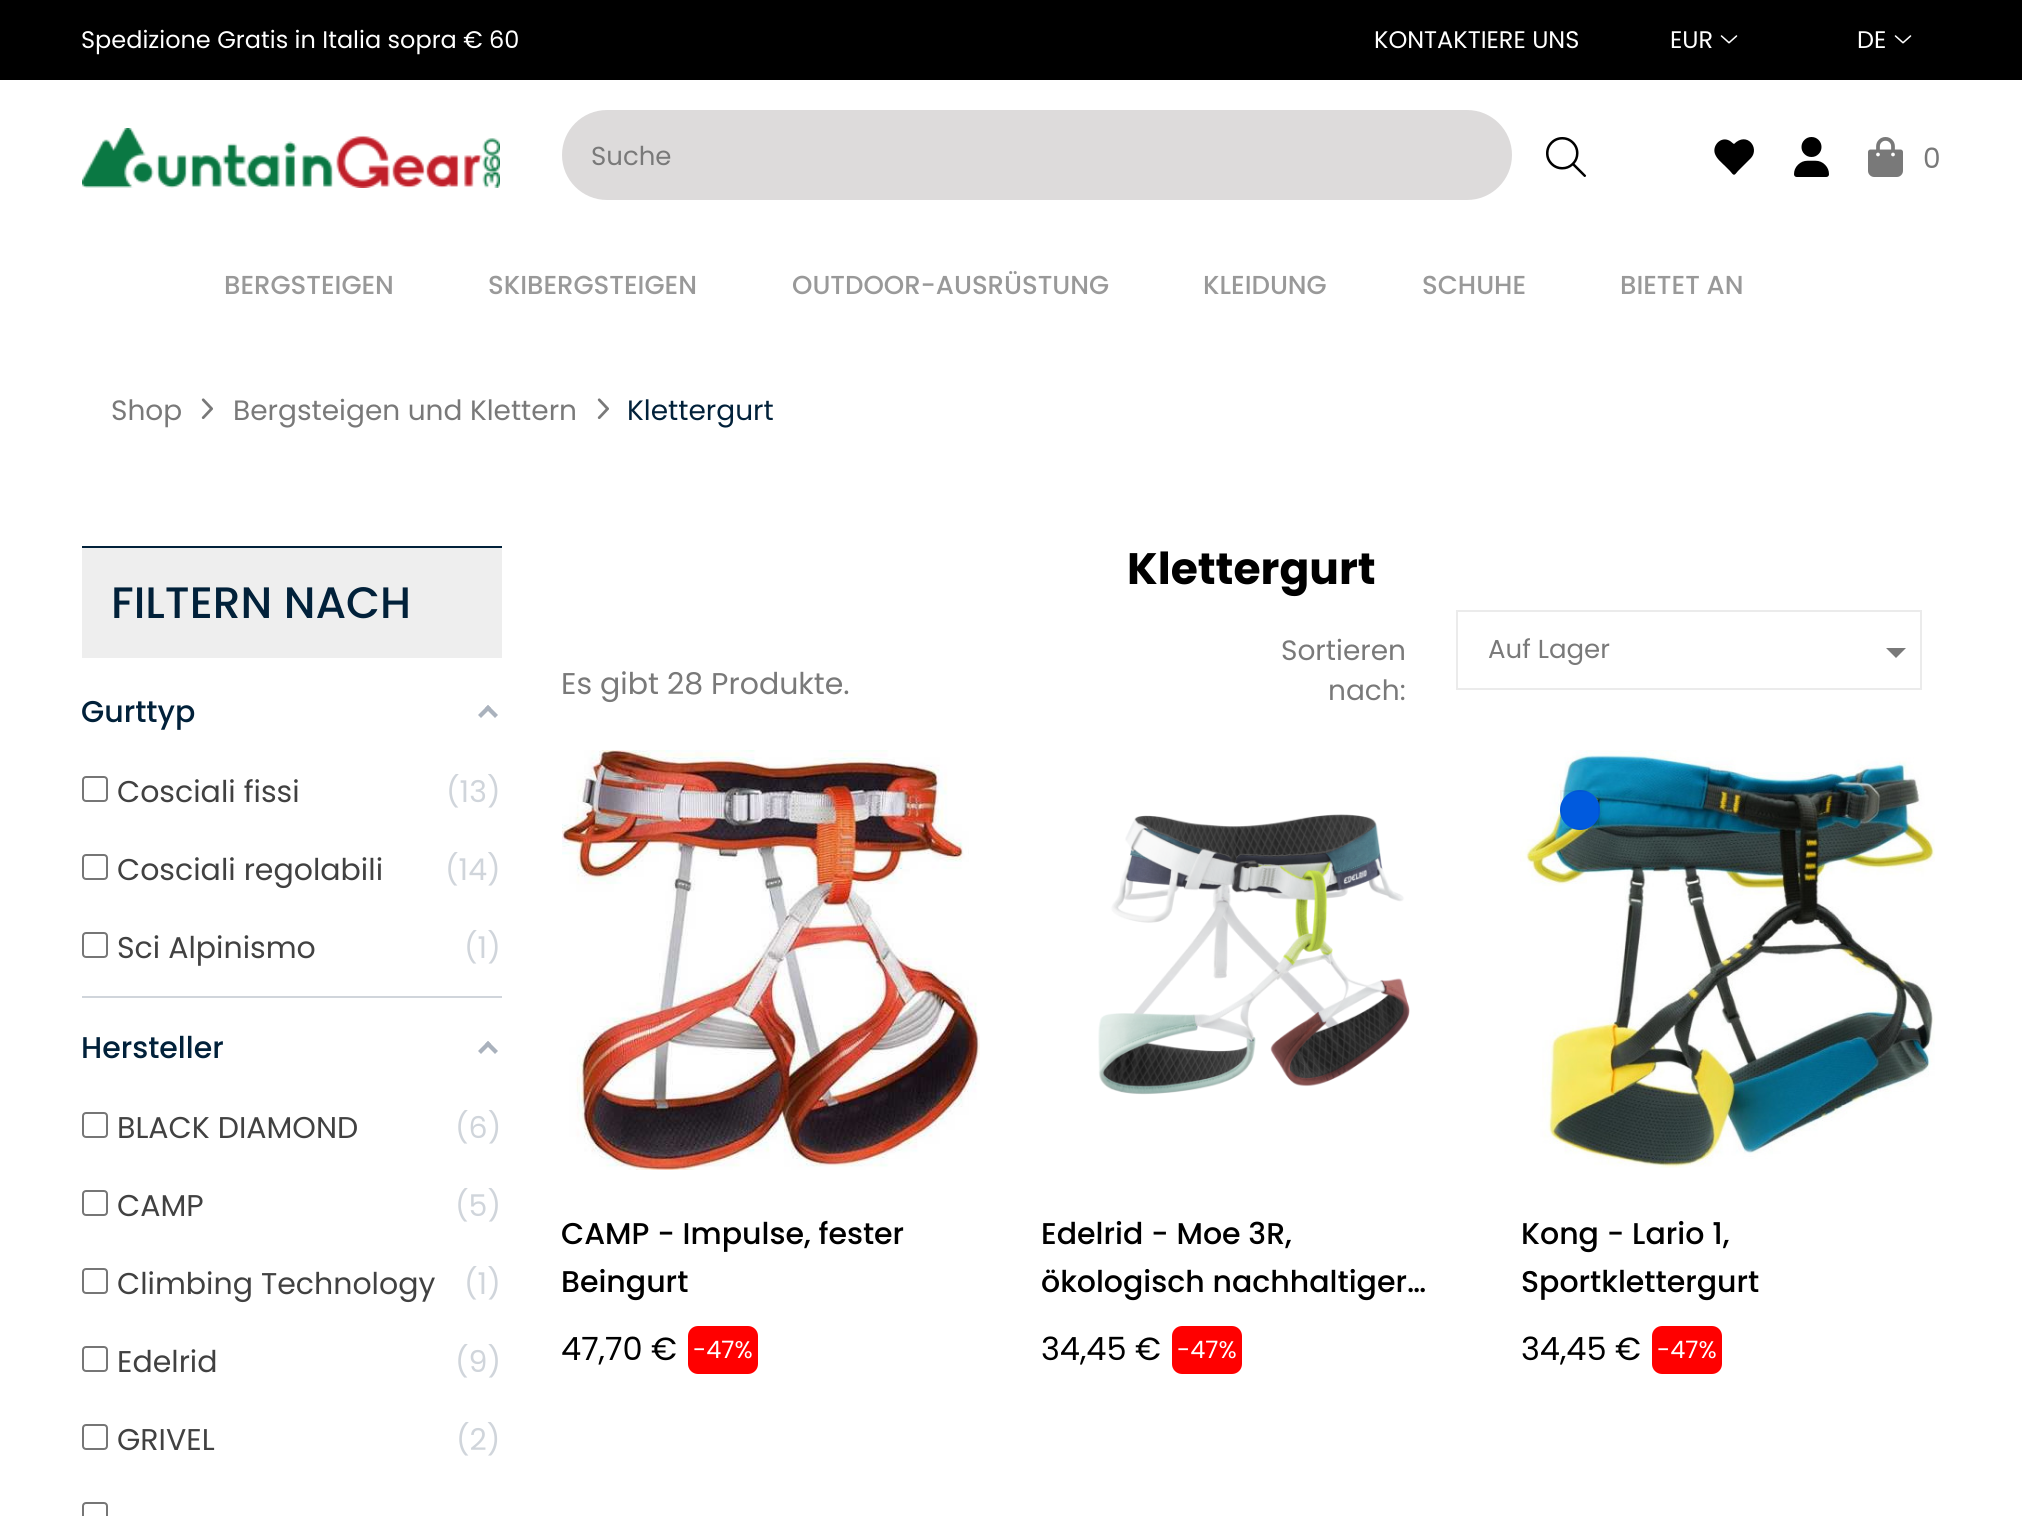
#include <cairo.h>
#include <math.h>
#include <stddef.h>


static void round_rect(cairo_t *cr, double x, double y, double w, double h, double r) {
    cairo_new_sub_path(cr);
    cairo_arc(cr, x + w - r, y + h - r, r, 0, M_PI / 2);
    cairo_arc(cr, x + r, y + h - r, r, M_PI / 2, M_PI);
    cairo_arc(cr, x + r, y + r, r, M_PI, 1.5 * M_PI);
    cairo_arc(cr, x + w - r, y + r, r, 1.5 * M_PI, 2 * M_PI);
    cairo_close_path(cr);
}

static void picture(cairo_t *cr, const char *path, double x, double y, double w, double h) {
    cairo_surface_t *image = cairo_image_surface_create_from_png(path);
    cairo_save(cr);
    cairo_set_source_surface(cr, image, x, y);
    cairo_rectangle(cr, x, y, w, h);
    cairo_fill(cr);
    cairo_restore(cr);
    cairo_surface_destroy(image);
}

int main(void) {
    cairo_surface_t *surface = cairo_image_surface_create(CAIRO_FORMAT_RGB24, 2022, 1516);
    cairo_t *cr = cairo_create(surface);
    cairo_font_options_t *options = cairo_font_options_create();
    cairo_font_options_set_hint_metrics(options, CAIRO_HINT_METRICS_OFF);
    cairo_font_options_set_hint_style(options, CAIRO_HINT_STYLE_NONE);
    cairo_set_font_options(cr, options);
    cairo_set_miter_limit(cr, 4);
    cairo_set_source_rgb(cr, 1, 1, 1);
    cairo_paint(cr);
    cairo_set_source_rgb(cr, 0, 0, 0);
    cairo_rectangle(cr, 0, 0, 2022, 80);
    cairo_fill(cr);
    cairo_select_font_face(cr, "Poppins", CAIRO_FONT_SLANT_NORMAL, CAIRO_FONT_WEIGHT_NORMAL);
    cairo_set_font_size(cr, 24);
    cairo_set_source_rgb(cr, 1, 1, 1);
    cairo_move_to(cr, 81, 48);
    cairo_show_text(cr, "Spedizione Gratis in Italia sopra € 60");
    cairo_move_to(cr, 1374, 48);
    cairo_show_text(cr, "KONTAKTIERE UNS");
    cairo_move_to(cr, 1670, 48);
    cairo_show_text(cr, "EUR");
    picture(cr, "img1.png", 1720, 35, 18, 9);
    cairo_move_to(cr, 1857, 48);
    cairo_show_text(cr, "DE");
    picture(cr, "img1.png", 1894, 35, 18, 9);
    picture(cr, "img2.png", 82, 128, 418, 60);
    cairo_set_source_rgb(cr, 0.867, 0.859, 0.859);
    round_rect(cr, 562, 110, 950, 90, 45);
    cairo_fill(cr);
    cairo_set_font_size(cr, 26);
    cairo_set_source_rgb(cr, 0.475, 0.475, 0.475);
    cairo_move_to(cr, 591, 165);
    cairo_show_text(cr, "Suche");
    picture(cr, "img3.png", 1546, 137, 41, 40);
    cairo_set_source_rgb(cr, 0, 0, 0);
    cairo_new_path(cr);
    cairo_move_to(cr, 1751, 158);
    cairo_line_to(cr, 1738, 171);
    cairo_curve_to(cr, 1734, 176, 1734, 176, 1730, 171);
    cairo_line_to(cr, 1725, 166);
    cairo_curve_to(cr, 1721, 162, 1717, 159, 1715, 154);
    cairo_curve_to(cr, 1712, 146, 1720, 137, 1728, 140);
    cairo_curve_to(cr, 1731, 141, 1732, 143, 1734, 144);
    cairo_curve_to(cr, 1747, 131, 1760, 148, 1751, 158);
    cairo_close_path(cr);
    cairo_fill(cr);
    picture(cr, "img4.png", 1794, 137, 35, 40);
    picture(cr, "img5.png", 1868, 137, 35, 40);
    cairo_set_font_size(cr, 28);
    cairo_set_source_rgb(cr, 0.475, 0.475, 0.475);
    cairo_move_to(cr, 1923, 168);
    cairo_show_text(cr, "0");
    cairo_select_font_face(cr, "Poppins Medium", CAIRO_FONT_SLANT_NORMAL, CAIRO_FONT_WEIGHT_NORMAL);
    cairo_set_font_size(cr, 26);
    cairo_set_source_rgb(cr, 0.6, 0.6, 0.6);
    cairo_move_to(cr, 224, 294);
    cairo_show_text(cr, "BERGSTEIGEN");
    cairo_move_to(cr, 488, 294);
    cairo_show_text(cr, "SKIBERGSTEIGEN");
    cairo_move_to(cr, 792, 294);
    cairo_show_text(cr, "OUTDOOR-AUSRÜSTUNG");
    cairo_move_to(cr, 1203, 294);
    cairo_show_text(cr, "KLEIDUNG");
    cairo_move_to(cr, 1422, 294);
    cairo_show_text(cr, "SCHUHE");
    cairo_move_to(cr, 1620, 294);
    cairo_show_text(cr, "BIETET AN");
    cairo_select_font_face(cr, "Poppins", CAIRO_FONT_SLANT_NORMAL, CAIRO_FONT_WEIGHT_NORMAL);
    cairo_set_font_size(cr, 28);
    cairo_set_source_rgb(cr, 0.475, 0.475, 0.475);
    cairo_move_to(cr, 111, 420);
    cairo_show_text(cr, "Shop");
    picture(cr, "img6.png", 201, 398, 12, 21);
    cairo_move_to(cr, 233, 420);
    cairo_show_text(cr, "Bergsteigen und Klettern");
    picture(cr, "img6.png", 597, 398, 12, 21);
    cairo_set_source_rgb(cr, 0.004, 0.129, 0.227);
    cairo_move_to(cr, 627, 420);
    cairo_show_text(cr, "Klettergurt");
    cairo_set_source_rgb(cr, 0.933, 0.933, 0.933);
    cairo_rectangle(cr, 82, 548, 420, 110);
    cairo_fill(cr);
    cairo_set_source_rgb(cr, 0.004, 0.129, 0.227);
    cairo_rectangle(cr, 82, 546, 420, 2);
    cairo_fill(cr);
    cairo_select_font_face(cr, "Poppins Medium", CAIRO_FONT_SLANT_NORMAL, CAIRO_FONT_WEIGHT_NORMAL);
    cairo_set_font_size(cr, 44);
    cairo_move_to(cr, 111, 618);
    cairo_show_text(cr, "FILTERN NACH");
    cairo_set_source_rgb(cr, 0.816, 0.835, 0.859);
    cairo_rectangle(cr, 82, 996, 420, 2);
    cairo_fill(cr);
    cairo_set_font_size(cr, 30);
    cairo_set_source_rgb(cr, 0.004, 0.129, 0.227);
    cairo_move_to(cr, 81, 722);
    cairo_show_text(cr, "Gurttyp");
    cairo_set_source_rgb(cr, 0.667, 0.698, 0.741);
    cairo_new_path(cr);
    cairo_move_to(cr, 488, 705);
    cairo_line_to(cr, 498, 715);
    cairo_line_to(cr, 495, 718);
    cairo_line_to(cr, 485, 708);
    cairo_close_path(cr);
    cairo_fill(cr);
    cairo_new_path(cr);
    cairo_move_to(cr, 488, 705);
    cairo_line_to(cr, 491, 708);
    cairo_line_to(cr, 481, 718);
    cairo_line_to(cr, 478, 715);
    cairo_close_path(cr);
    cairo_fill(cr);
    round_rect(cr, 83, 777, 24, 24, 3);
    cairo_set_source_rgb(cr, 0.463, 0.463, 0.463);
    cairo_stroke(cr);
    cairo_select_font_face(cr, "Poppins", CAIRO_FONT_SLANT_NORMAL, CAIRO_FONT_WEIGHT_NORMAL);
    cairo_set_source_rgb(cr, 0.255, 0.255, 0.255);
    cairo_move_to(cr, 117, 802);
    cairo_show_text(cr, "Cosciali fissi");
    cairo_set_source_rgb(cr, 0.816, 0.835, 0.859);
    cairo_move_to(cr, 446, 802);
    cairo_show_text(cr, "(13)");
    round_rect(cr, 83, 855, 24, 24, 3);
    cairo_set_source_rgb(cr, 0.463, 0.463, 0.463);
    cairo_stroke(cr);
    cairo_set_source_rgb(cr, 0.255, 0.255, 0.255);
    cairo_move_to(cr, 117, 880);
    cairo_show_text(cr, "Cosciali regolabili");
    cairo_set_source_rgb(cr, 0.816, 0.835, 0.859);
    cairo_move_to(cr, 445, 880);
    cairo_show_text(cr, "(14)");
    round_rect(cr, 83, 933, 24, 24, 3);
    cairo_set_source_rgb(cr, 0.463, 0.463, 0.463);
    cairo_stroke(cr);
    cairo_set_source_rgb(cr, 0.255, 0.255, 0.255);
    cairo_move_to(cr, 117, 958);
    cairo_show_text(cr, "Sci Alpinismo");
    cairo_set_source_rgb(cr, 0.816, 0.835, 0.859);
    cairo_move_to(cr, 464, 958);
    cairo_show_text(cr, "(1)");
    cairo_select_font_face(cr, "Poppins Medium", CAIRO_FONT_SLANT_NORMAL, CAIRO_FONT_WEIGHT_NORMAL);
    cairo_set_source_rgb(cr, 0.004, 0.129, 0.227);
    cairo_move_to(cr, 81, 1058);
    cairo_show_text(cr, "Hersteller");
    cairo_set_source_rgb(cr, 0.667, 0.698, 0.741);
    cairo_new_path(cr);
    cairo_move_to(cr, 488, 1041);
    cairo_line_to(cr, 498, 1051);
    cairo_line_to(cr, 495, 1054);
    cairo_line_to(cr, 485, 1044);
    cairo_close_path(cr);
    cairo_fill(cr);
    cairo_new_path(cr);
    cairo_move_to(cr, 488, 1041);
    cairo_line_to(cr, 491, 1044);
    cairo_line_to(cr, 481, 1054);
    cairo_line_to(cr, 478, 1051);
    cairo_close_path(cr);
    cairo_fill(cr);
    round_rect(cr, 83, 1113, 24, 24, 3);
    cairo_set_source_rgb(cr, 0.463, 0.463, 0.463);
    cairo_stroke(cr);
    cairo_select_font_face(cr, "Poppins", CAIRO_FONT_SLANT_NORMAL, CAIRO_FONT_WEIGHT_NORMAL);
    cairo_set_source_rgb(cr, 0.255, 0.255, 0.255);
    cairo_move_to(cr, 117, 1138);
    cairo_show_text(cr, "BLACK DIAMOND");
    cairo_set_source_rgb(cr, 0.816, 0.835, 0.859);
    cairo_move_to(cr, 455, 1138);
    cairo_show_text(cr, "(6)");
    round_rect(cr, 83, 1191, 24, 24, 3);
    cairo_set_source_rgb(cr, 0.463, 0.463, 0.463);
    cairo_stroke(cr);
    cairo_set_source_rgb(cr, 0.255, 0.255, 0.255);
    cairo_move_to(cr, 117, 1216);
    cairo_show_text(cr, "CAMP");
    cairo_set_source_rgb(cr, 0.816, 0.835, 0.859);
    cairo_move_to(cr, 455, 1216);
    cairo_show_text(cr, "(5)");
    round_rect(cr, 83, 1269, 24, 24, 3);
    cairo_set_source_rgb(cr, 0.463, 0.463, 0.463);
    cairo_stroke(cr);
    cairo_set_source_rgb(cr, 0.255, 0.255, 0.255);
    cairo_move_to(cr, 117, 1294);
    cairo_show_text(cr, "Climbing Technology");
    cairo_set_source_rgb(cr, 0.816, 0.835, 0.859);
    cairo_move_to(cr, 464, 1294);
    cairo_show_text(cr, "(1)");
    round_rect(cr, 83, 1347, 24, 24, 3);
    cairo_set_source_rgb(cr, 0.463, 0.463, 0.463);
    cairo_stroke(cr);
    cairo_set_source_rgb(cr, 0.255, 0.255, 0.255);
    cairo_move_to(cr, 117, 1372);
    cairo_show_text(cr, "Edelrid");
    cairo_set_source_rgb(cr, 0.816, 0.835, 0.859);
    cairo_move_to(cr, 455, 1372);
    cairo_show_text(cr, "(9)");
    round_rect(cr, 83, 1425, 24, 24, 3);
    cairo_set_source_rgb(cr, 0.463, 0.463, 0.463);
    cairo_stroke(cr);
    cairo_set_source_rgb(cr, 0.255, 0.255, 0.255);
    cairo_move_to(cr, 117, 1450);
    cairo_show_text(cr, "GRIVEL");
    cairo_set_source_rgb(cr, 0.816, 0.835, 0.859);
    cairo_move_to(cr, 456, 1450);
    cairo_show_text(cr, "(2)");
    round_rect(cr, 83, 1503, 24, 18, 3);
    cairo_set_source_rgb(cr, 0.463, 0.463, 0.463);
    cairo_stroke(cr);
    cairo_select_font_face(cr, "Poppins", CAIRO_FONT_SLANT_NORMAL, CAIRO_FONT_WEIGHT_BOLD);
    cairo_set_font_size(cr, 44);
    cairo_set_source_rgb(cr, 0, 0, 0);
    cairo_move_to(cr, 1127, 584);
    cairo_show_text(cr, "Klettergurt");
    cairo_select_font_face(cr, "Poppins", CAIRO_FONT_SLANT_NORMAL, CAIRO_FONT_WEIGHT_NORMAL);
    cairo_set_font_size(cr, 30);
    cairo_set_source_rgb(cr, 0.475, 0.475, 0.475);
    cairo_move_to(cr, 561, 694);
    cairo_show_text(cr, "Es gibt 28 Produkte.");
    cairo_set_font_size(cr, 28);
    cairo_move_to(cr, 1281, 660);
    cairo_show_text(cr, "Sortieren");
    cairo_move_to(cr, 1328, 700);
    cairo_show_text(cr, "nach:");
    cairo_rectangle(cr, 1457, 611, 464, 78);
    cairo_set_source_rgb(cr, 0.918, 0.918, 0.918);
    cairo_stroke(cr);
    cairo_set_font_size(cr, 26);
    cairo_set_source_rgb(cr, 0.475, 0.475, 0.475);
    cairo_move_to(cr, 1488, 658);
    cairo_show_text(cr, "Auf Lager");
    cairo_new_path(cr);
    cairo_move_to(cr, 1886, 648);
    cairo_line_to(cr, 1906, 648);
    cairo_line_to(cr, 1896, 658);
    cairo_close_path(cr);
    cairo_fill(cr);
    picture(cr, "img7.png", 562, 750, 418, 420);
    cairo_select_font_face(cr, "Poppins Medium", CAIRO_FONT_SLANT_NORMAL, CAIRO_FONT_WEIGHT_NORMAL);
    cairo_set_font_size(cr, 30);
    cairo_set_source_rgb(cr, 0, 0, 0);
    cairo_move_to(cr, 561, 1244);
    cairo_show_text(cr, "CAMP - Impulse, fester");
    cairo_move_to(cr, 561, 1292);
    cairo_show_text(cr, "Beingurt");
    cairo_select_font_face(cr, "Poppins", CAIRO_FONT_SLANT_NORMAL, CAIRO_FONT_WEIGHT_NORMAL);
    cairo_set_font_size(cr, 32);
    cairo_move_to(cr, 561, 1360);
    cairo_show_text(cr, "47,70 €");
    cairo_set_source_rgb(cr, 1, 0, 0);
    round_rect(cr, 688, 1326, 70, 48, 10);
    cairo_fill(cr);
    cairo_set_font_size(cr, 24);
    cairo_set_source_rgb(cr, 1, 1, 1);
    cairo_move_to(cr, 693, 1358);
    cairo_show_text(cr, "-47%");
    picture(cr, "img8.png", 1098, 814, 312, 281);
    cairo_select_font_face(cr, "Poppins Medium", CAIRO_FONT_SLANT_NORMAL, CAIRO_FONT_WEIGHT_NORMAL);
    cairo_set_font_size(cr, 30);
    cairo_set_source_rgb(cr, 0, 0, 0);
    cairo_move_to(cr, 1041, 1244);
    cairo_show_text(cr, "Edelrid - Moe 3R,");
    cairo_move_to(cr, 1041, 1292);
    cairo_show_text(cr, "ökologisch nachhaltiger…");
    cairo_select_font_face(cr, "Poppins", CAIRO_FONT_SLANT_NORMAL, CAIRO_FONT_WEIGHT_NORMAL);
    cairo_set_font_size(cr, 32);
    cairo_move_to(cr, 1041, 1360);
    cairo_show_text(cr, "34,45 €");
    cairo_set_source_rgb(cr, 1, 0, 0);
    round_rect(cr, 1172, 1326, 70, 48, 10);
    cairo_fill(cr);
    cairo_set_font_size(cr, 24);
    cairo_set_source_rgb(cr, 1, 1, 1);
    cairo_move_to(cr, 1177, 1358);
    cairo_show_text(cr, "-47%");
    picture(cr, "img9.png", 1520, 750, 415, 418);
    cairo_set_source_rgb(cr, 0, 0.353, 0.871);
    cairo_arc(cr, 1580, 810, 20, 0, 2 * M_PI);
    cairo_fill(cr);
    cairo_rectangle(cr, 1561, 791, 38, 38);
    cairo_set_source_rgba(cr, 0, 0, 0, 0.05);
    cairo_stroke(cr);
    cairo_select_font_face(cr, "Poppins Medium", CAIRO_FONT_SLANT_NORMAL, CAIRO_FONT_WEIGHT_NORMAL);
    cairo_set_font_size(cr, 30);
    cairo_set_source_rgb(cr, 0, 0, 0);
    cairo_move_to(cr, 1521, 1244);
    cairo_show_text(cr, "Kong - Lario 1,");
    cairo_move_to(cr, 1521, 1292);
    cairo_show_text(cr, "Sportklettergurt");
    cairo_select_font_face(cr, "Poppins", CAIRO_FONT_SLANT_NORMAL, CAIRO_FONT_WEIGHT_NORMAL);
    cairo_set_font_size(cr, 32);
    cairo_move_to(cr, 1521, 1360);
    cairo_show_text(cr, "34,45 €");
    cairo_set_source_rgb(cr, 1, 0, 0);
    round_rect(cr, 1652, 1326, 70, 48, 10);
    cairo_fill(cr);
    cairo_set_font_size(cr, 24);
    cairo_set_source_rgb(cr, 1, 1, 1);
    cairo_move_to(cr, 1657, 1358);
    cairo_show_text(cr, "-47%");
    cairo_surface_write_to_png(surface, "page.png");
    cairo_font_options_destroy(options);
    cairo_destroy(cr);
    cairo_surface_destroy(surface);
    return 0;
}
